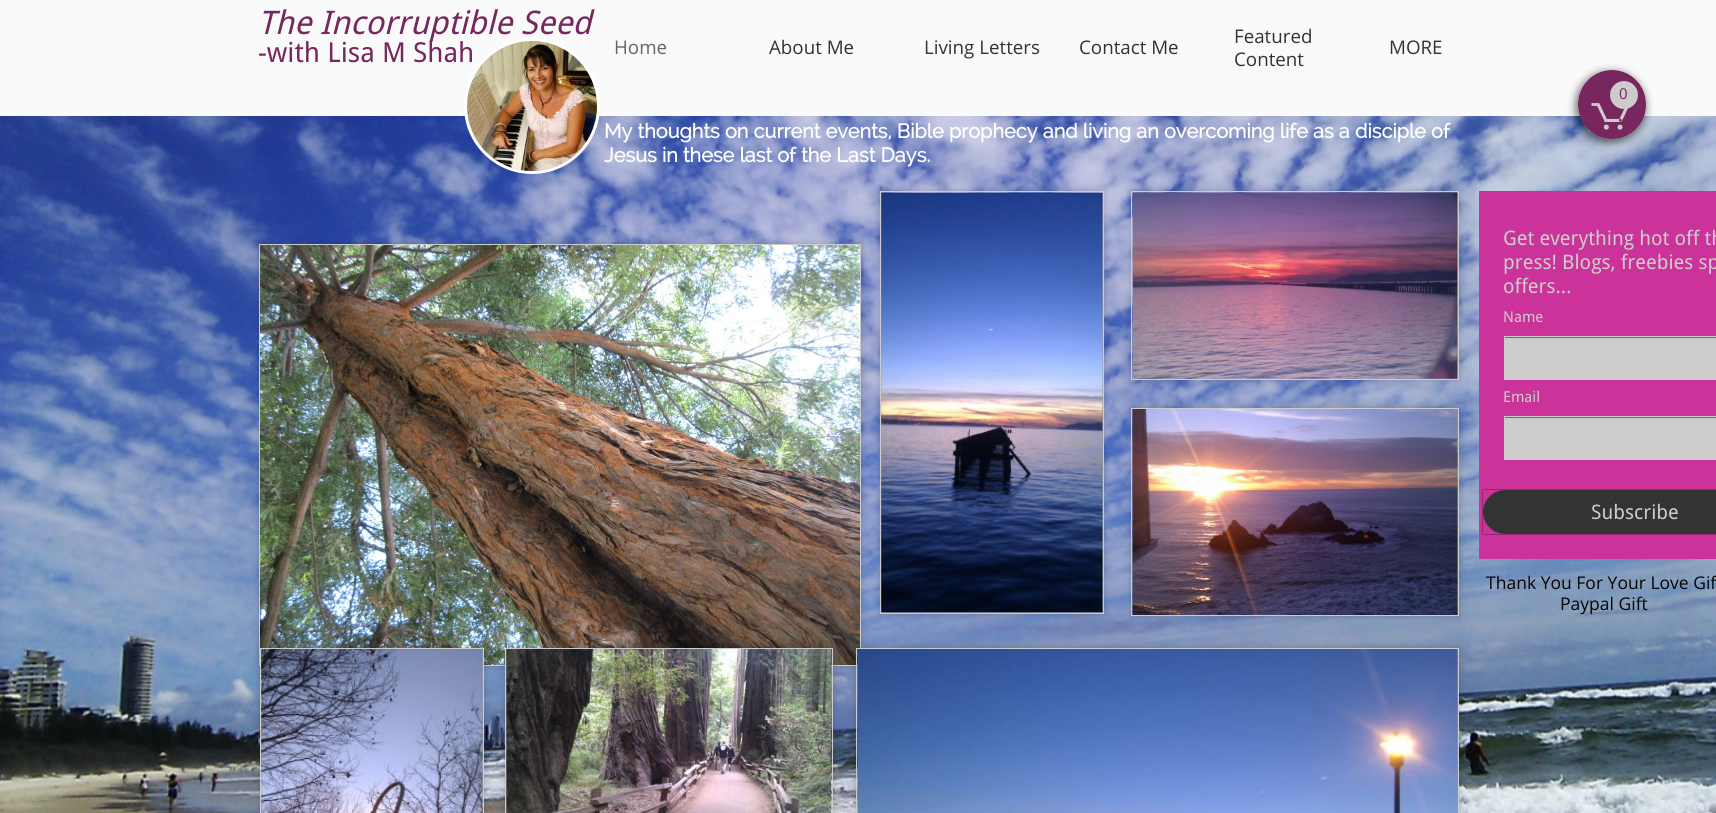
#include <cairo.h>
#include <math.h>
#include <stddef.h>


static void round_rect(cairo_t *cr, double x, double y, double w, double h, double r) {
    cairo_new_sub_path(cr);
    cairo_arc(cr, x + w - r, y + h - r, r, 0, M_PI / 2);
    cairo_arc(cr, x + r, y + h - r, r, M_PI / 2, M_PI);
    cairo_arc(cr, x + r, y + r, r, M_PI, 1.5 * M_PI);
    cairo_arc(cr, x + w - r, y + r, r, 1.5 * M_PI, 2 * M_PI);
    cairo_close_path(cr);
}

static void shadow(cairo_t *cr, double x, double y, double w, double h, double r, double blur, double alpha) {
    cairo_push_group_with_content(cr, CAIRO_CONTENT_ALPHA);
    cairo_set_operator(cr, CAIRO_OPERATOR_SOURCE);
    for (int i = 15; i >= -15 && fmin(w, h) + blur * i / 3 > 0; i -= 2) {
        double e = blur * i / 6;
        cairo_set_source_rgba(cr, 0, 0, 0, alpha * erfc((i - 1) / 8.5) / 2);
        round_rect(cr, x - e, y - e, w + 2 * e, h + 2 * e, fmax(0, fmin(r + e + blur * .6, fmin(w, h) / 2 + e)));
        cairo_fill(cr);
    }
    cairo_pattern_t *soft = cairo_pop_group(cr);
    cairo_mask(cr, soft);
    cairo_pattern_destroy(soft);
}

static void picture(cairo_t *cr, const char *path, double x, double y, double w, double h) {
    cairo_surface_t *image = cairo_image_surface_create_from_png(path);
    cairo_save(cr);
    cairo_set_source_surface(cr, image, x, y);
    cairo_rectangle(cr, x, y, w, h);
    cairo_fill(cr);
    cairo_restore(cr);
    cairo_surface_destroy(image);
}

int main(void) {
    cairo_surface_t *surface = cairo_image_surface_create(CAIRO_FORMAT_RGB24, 1716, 813);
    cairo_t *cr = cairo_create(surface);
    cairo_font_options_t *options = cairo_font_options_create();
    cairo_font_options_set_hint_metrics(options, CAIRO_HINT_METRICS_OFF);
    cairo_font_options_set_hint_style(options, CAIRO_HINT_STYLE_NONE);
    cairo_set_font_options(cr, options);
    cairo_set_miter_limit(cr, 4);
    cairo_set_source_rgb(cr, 1, 1, 1);
    cairo_paint(cr);
    cairo_set_source_rgb(cr, 0.98, 0.98, 0.98);
    cairo_rectangle(cr, 0, 0, 1716, 116);
    cairo_fill(cr);
    picture(cr, "img10.png", 0, 116, 1716, 697);
    picture(cr, "img1.png", 467, 41, 130, 130);
    cairo_arc(cr, 532, 106, 66.5, 0, 2 * M_PI);
    cairo_set_source_rgb(cr, 1, 1, 1);
    cairo_set_line_width(cr, 3);
    cairo_stroke(cr);
    cairo_select_font_face(cr, "Droid Sans", CAIRO_FONT_SLANT_ITALIC, CAIRO_FONT_WEIGHT_NORMAL);
    cairo_set_font_size(cr, 32.5);
    cairo_set_source_rgb(cr, 0.467, 0.149, 0.369);
    cairo_move_to(cr, 258, 34);
    cairo_show_text(cr, "The Incorruptible Seed");
    cairo_select_font_face(cr, "Droid Sans", CAIRO_FONT_SLANT_NORMAL, CAIRO_FONT_WEIGHT_NORMAL);
    cairo_set_font_size(cr, 27.5);
    cairo_move_to(cr, 258, 62);
    cairo_show_text(cr, "-with Lisa M Shah");
    cairo_select_font_face(cr, "Open Sans", CAIRO_FONT_SLANT_NORMAL, CAIRO_FONT_WEIGHT_NORMAL);
    cairo_set_font_size(cr, 18.75);
    cairo_set_source_rgb(cr, 0.4, 0.4, 0.4);
    cairo_move_to(cr, 614, 54);
    cairo_show_text(cr, "Home");
    cairo_set_source_rgb(cr, 0.2, 0.2, 0.2);
    cairo_move_to(cr, 769, 54);
    cairo_show_text(cr, "About Me");
    cairo_move_to(cr, 924, 54);
    cairo_show_text(cr, "Living Letters");
    cairo_move_to(cr, 1079, 54);
    cairo_show_text(cr, "Contact Me");
    cairo_move_to(cr, 1234, 43);
    cairo_show_text(cr, "Featured");
    cairo_move_to(cr, 1234, 66);
    cairo_show_text(cr, "Content");
    cairo_move_to(cr, 1389, 54);
    cairo_show_text(cr, "MORE");
    cairo_set_source_rgb(cr, 0.467, 0.149, 0.369);
    round_rect(cr, 1578, 70, 68, 69, 34);
    cairo_fill(cr);
    cairo_save(cr);
    cairo_set_fill_rule(cr, CAIRO_FILL_RULE_EVEN_ODD);
    cairo_new_path(cr);
    cairo_move_to(cr, 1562, 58);
    cairo_line_to(cr, 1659, 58);
    cairo_line_to(cr, 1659, 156);
    cairo_line_to(cr, 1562, 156);
    cairo_close_path(cr);
    cairo_move_to(cr, 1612, 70);
    cairo_curve_to(cr, 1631, 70, 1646, 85, 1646, 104);
    cairo_line_to(cr, 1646, 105);
    cairo_curve_to(cr, 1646, 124, 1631, 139, 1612, 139);
    cairo_curve_to(cr, 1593, 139, 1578, 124, 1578, 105);
    cairo_line_to(cr, 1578, 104);
    cairo_curve_to(cr, 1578, 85, 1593, 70, 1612, 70);
    cairo_close_path(cr);
    cairo_clip(cr);
    cairo_set_source_rgb(cr, 0, 0, 0);
    shadow(cr, 1575, 71, 71, 72, 35.5, 4, 0.5);
    cairo_restore(cr);
    picture(cr, "img2.png", 1591, 103, 38, 27);
    cairo_set_source_rgb(cr, 0.8, 0.8, 0.8);
    cairo_arc(cr, 1624, 95, 14, 0, 2 * M_PI);
    cairo_fill(cr);
    cairo_set_font_size(cr, 15);
    cairo_set_source_rgb(cr, 0.467, 0.149, 0.369);
    cairo_move_to(cr, 1619, 99);
    cairo_show_text(cr, "0");
    cairo_select_font_face(cr, "Raleway", CAIRO_FONT_SLANT_NORMAL, CAIRO_FONT_WEIGHT_BOLD);
    cairo_set_font_size(cr, 20);
    cairo_set_source_rgb(cr, 1, 1, 1);
    cairo_move_to(cr, 604, 138);
    cairo_show_text(cr, "My thoughts on current events, Bible prophecy and living an overcoming life as a disciple of");
    cairo_move_to(cr, 604, 162);
    cairo_show_text(cr, "Jesus in these last of the Last Days.");
    picture(cr, "img3.png", 260, 245, 600, 420);
    cairo_save(cr);
    cairo_set_fill_rule(cr, CAIRO_FILL_RULE_EVEN_ODD);
    cairo_new_path(cr);
    cairo_move_to(cr, 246, 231);
    cairo_line_to(cr, 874, 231);
    cairo_line_to(cr, 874, 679);
    cairo_line_to(cr, 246, 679);
    cairo_close_path(cr);
    cairo_move_to(cr, 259, 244);
    cairo_line_to(cr, 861, 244);
    cairo_line_to(cr, 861, 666);
    cairo_line_to(cr, 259, 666);
    cairo_close_path(cr);
    cairo_clip(cr);
    cairo_set_source_rgb(cr, 0, 0, 0);
    shadow(cr, 259, 244, 602, 422, 0, 4, 0.2);
    cairo_restore(cr);
    cairo_rectangle(cr, 259.5, 244.5, 601, 421);
    cairo_set_source_rgb(cr, 0.8, 0.8, 0.8);
    cairo_set_line_width(cr, 1);
    cairo_stroke(cr);
    cairo_set_source_rgb(cr, 0.6, 0.6, 0.6);
    cairo_rectangle(cr, 881, 193, 222, 420);
    cairo_fill(cr);
    picture(cr, "img4.png", 881, 192, 222, 421);
    cairo_save(cr);
    cairo_set_fill_rule(cr, CAIRO_FILL_RULE_EVEN_ODD);
    cairo_new_path(cr);
    cairo_move_to(cr, 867, 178);
    cairo_line_to(cr, 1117, 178);
    cairo_line_to(cr, 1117, 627);
    cairo_line_to(cr, 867, 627);
    cairo_close_path(cr);
    cairo_move_to(cr, 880, 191);
    cairo_line_to(cr, 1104, 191);
    cairo_line_to(cr, 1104, 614);
    cairo_line_to(cr, 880, 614);
    cairo_close_path(cr);
    cairo_clip(cr);
    cairo_set_source_rgb(cr, 0, 0, 0);
    shadow(cr, 880, 191, 224, 423, 0, 4, 0.2);
    cairo_restore(cr);
    cairo_rectangle(cr, 880.5, 191.5, 223, 422);
    cairo_set_source_rgb(cr, 0.8, 0.8, 0.8);
    cairo_stroke(cr);
    cairo_set_source_rgb(cr, 0.6, 0.6, 0.6);
    cairo_rectangle(cr, 1133, 193, 325, 186);
    cairo_fill(cr);
    picture(cr, "img5.png", 1132, 192, 326, 187);
    cairo_save(cr);
    cairo_set_fill_rule(cr, CAIRO_FILL_RULE_EVEN_ODD);
    cairo_new_path(cr);
    cairo_move_to(cr, 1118, 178);
    cairo_line_to(cr, 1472, 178);
    cairo_line_to(cr, 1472, 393);
    cairo_line_to(cr, 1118, 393);
    cairo_close_path(cr);
    cairo_move_to(cr, 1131, 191);
    cairo_line_to(cr, 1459, 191);
    cairo_line_to(cr, 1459, 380);
    cairo_line_to(cr, 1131, 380);
    cairo_close_path(cr);
    cairo_clip(cr);
    cairo_set_source_rgb(cr, 0, 0, 0);
    shadow(cr, 1131, 191, 328, 189, 0, 4, 0.2);
    cairo_restore(cr);
    cairo_rectangle(cr, 1131.5, 191.5, 327, 188);
    cairo_set_source_rgb(cr, 0.8, 0.8, 0.8);
    cairo_stroke(cr);
    cairo_set_source_rgb(cr, 0.796, 0.196, 0.604);
    cairo_rectangle(cr, 1479, 191, 237, 368);
    cairo_fill(cr);
    cairo_select_font_face(cr, "Droid Sans", CAIRO_FONT_SLANT_NORMAL, CAIRO_FONT_WEIGHT_NORMAL);
    cairo_set_source_rgb(cr, 0.8, 0.8, 0.8);
    cairo_move_to(cr, 1503, 245);
    cairo_show_text(cr, "Get everything hot off th");
    cairo_move_to(cr, 1503, 269);
    cairo_show_text(cr, "press! Blogs, freebies sp");
    cairo_move_to(cr, 1503, 293);
    cairo_show_text(cr, "offers...");
    cairo_set_font_size(cr, 15);
    cairo_move_to(cr, 1503, 322);
    cairo_show_text(cr, "Name");
    cairo_rectangle(cr, 1505, 338, 211, 41);
    cairo_fill(cr);
    cairo_rectangle(cr, 1504.5, 336.5, 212, 43);
    cairo_stroke(cr);
    cairo_move_to(cr, 1503, 402);
    cairo_show_text(cr, "Email");
    cairo_rectangle(cr, 1505, 418, 211, 41);
    cairo_fill(cr);
    cairo_rectangle(cr, 1504.5, 416.5, 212, 43);
    cairo_stroke(cr);
    cairo_save(cr);
    cairo_set_fill_rule(cr, CAIRO_FILL_RULE_EVEN_ODD);
    cairo_new_path(cr);
    cairo_move_to(cr, 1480, 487);
    cairo_line_to(cr, 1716, 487);
    cairo_line_to(cr, 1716, 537);
    cairo_line_to(cr, 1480, 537);
    cairo_close_path(cr);
    cairo_move_to(cr, 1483, 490);
    cairo_line_to(cr, 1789, 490);
    cairo_line_to(cr, 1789, 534);
    cairo_line_to(cr, 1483, 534);
    cairo_close_path(cr);
    cairo_clip(cr);
    cairo_set_source_rgb(cr, 0, 0, 0);
    shadow(cr, 1483, 490, 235, 44, 0, 0.5, 1);
    cairo_restore(cr);
    cairo_set_source_rgb(cr, 0.2, 0.2, 0.2);
    cairo_new_path(cr);
    cairo_move_to(cr, 1505, 490);
    cairo_line_to(cr, 1716, 490);
    cairo_line_to(cr, 1716, 534);
    cairo_line_to(cr, 1505, 534);
    cairo_curve_to(cr, 1493, 534, 1483, 524, 1483, 512);
    cairo_curve_to(cr, 1483, 500, 1493, 490, 1505, 490);
    cairo_close_path(cr);
    cairo_fill(cr);
    cairo_set_font_size(cr, 20);
    cairo_set_source_rgb(cr, 0.8, 0.8, 0.8);
    cairo_move_to(cr, 1591, 519);
    cairo_show_text(cr, "Subscribe");
    cairo_set_source_rgb(cr, 0.6, 0.6, 0.6);
    cairo_rectangle(cr, 1457, 409, 1, 206);
    cairo_fill(cr);
    picture(cr, "img6.png", 1132, 409, 326, 206);
    cairo_save(cr);
    cairo_set_fill_rule(cr, CAIRO_FILL_RULE_EVEN_ODD);
    cairo_new_path(cr);
    cairo_move_to(cr, 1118, 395);
    cairo_line_to(cr, 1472, 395);
    cairo_line_to(cr, 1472, 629);
    cairo_line_to(cr, 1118, 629);
    cairo_close_path(cr);
    cairo_move_to(cr, 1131, 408);
    cairo_line_to(cr, 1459, 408);
    cairo_line_to(cr, 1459, 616);
    cairo_line_to(cr, 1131, 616);
    cairo_close_path(cr);
    cairo_clip(cr);
    cairo_set_source_rgb(cr, 0, 0, 0);
    shadow(cr, 1131, 408, 328, 208, 0, 4, 0.2);
    cairo_restore(cr);
    cairo_rectangle(cr, 1131.5, 408.5, 327, 207);
    cairo_set_source_rgb(cr, 0.8, 0.8, 0.8);
    cairo_stroke(cr);
    cairo_select_font_face(cr, "Open Sans", CAIRO_FONT_SLANT_NORMAL, CAIRO_FONT_WEIGHT_NORMAL);
    cairo_set_font_size(cr, 17.5);
    cairo_set_source_rgb(cr, 0.02, 0.02, 0.02);
    cairo_move_to(cr, 1486, 589);
    cairo_show_text(cr, "Thank You For Your Love Gif");
    cairo_move_to(cr, 1560, 610);
    cairo_show_text(cr, "Paypal Gift");
    cairo_set_source_rgb(cr, 0.6, 0.6, 0.6);
    cairo_rectangle(cr, 261, 649, 222, 164);
    cairo_fill(cr);
    picture(cr, "img7.png", 261, 649, 222, 164);
    cairo_save(cr);
    cairo_set_fill_rule(cr, CAIRO_FILL_RULE_EVEN_ODD);
    cairo_new_path(cr);
    cairo_move_to(cr, 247, 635);
    cairo_line_to(cr, 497, 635);
    cairo_line_to(cr, 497, 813);
    cairo_line_to(cr, 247, 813);
    cairo_close_path(cr);
    cairo_move_to(cr, 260, 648);
    cairo_line_to(cr, 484, 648);
    cairo_line_to(cr, 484, 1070);
    cairo_line_to(cr, 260, 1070);
    cairo_close_path(cr);
    cairo_clip(cr);
    cairo_set_source_rgb(cr, 0, 0, 0);
    shadow(cr, 260, 648, 224, 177, 0, 4, 0.2);
    cairo_restore(cr);
    cairo_rectangle(cr, 260.5, 648.5, 223, 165);
    cairo_set_source_rgb(cr, 0.8, 0.8, 0.8);
    cairo_stroke(cr);
    cairo_set_source_rgb(cr, 0.6, 0.6, 0.6);
    cairo_rectangle(cr, 506, 649, 1, 164);
    cairo_fill(cr);
    picture(cr, "img8.png", 506, 649, 326, 164);
    cairo_save(cr);
    cairo_set_fill_rule(cr, CAIRO_FILL_RULE_EVEN_ODD);
    cairo_new_path(cr);
    cairo_move_to(cr, 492, 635);
    cairo_line_to(cr, 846, 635);
    cairo_line_to(cr, 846, 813);
    cairo_line_to(cr, 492, 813);
    cairo_close_path(cr);
    cairo_move_to(cr, 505, 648);
    cairo_line_to(cr, 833, 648);
    cairo_line_to(cr, 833, 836);
    cairo_line_to(cr, 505, 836);
    cairo_close_path(cr);
    cairo_clip(cr);
    cairo_set_source_rgb(cr, 0, 0, 0);
    shadow(cr, 505, 648, 328, 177, 0, 4, 0.2);
    cairo_restore(cr);
    cairo_rectangle(cr, 505.5, 648.5, 327, 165);
    cairo_set_source_rgb(cr, 0.8, 0.8, 0.8);
    cairo_stroke(cr);
    cairo_set_source_rgb(cr, 0.6, 0.6, 0.6);
    cairo_rectangle(cr, 1457, 649, 1, 164);
    cairo_fill(cr);
    picture(cr, "img9.png", 857, 649, 601, 164);
    cairo_save(cr);
    cairo_set_fill_rule(cr, CAIRO_FILL_RULE_EVEN_ODD);
    cairo_new_path(cr);
    cairo_move_to(cr, 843, 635);
    cairo_line_to(cr, 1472, 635);
    cairo_line_to(cr, 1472, 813);
    cairo_line_to(cr, 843, 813);
    cairo_close_path(cr);
    cairo_move_to(cr, 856, 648);
    cairo_line_to(cr, 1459, 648);
    cairo_line_to(cr, 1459, 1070);
    cairo_line_to(cr, 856, 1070);
    cairo_close_path(cr);
    cairo_clip(cr);
    cairo_set_source_rgb(cr, 0, 0, 0);
    shadow(cr, 856, 648, 603, 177, 0, 4, 0.2);
    cairo_restore(cr);
    cairo_rectangle(cr, 856.5, 648.5, 602, 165);
    cairo_set_source_rgb(cr, 0.8, 0.8, 0.8);
    cairo_stroke(cr);
    cairo_surface_write_to_png(surface, "page.png");
    cairo_font_options_destroy(options);
    cairo_destroy(cr);
    cairo_surface_destroy(surface);
    return 0;
}
